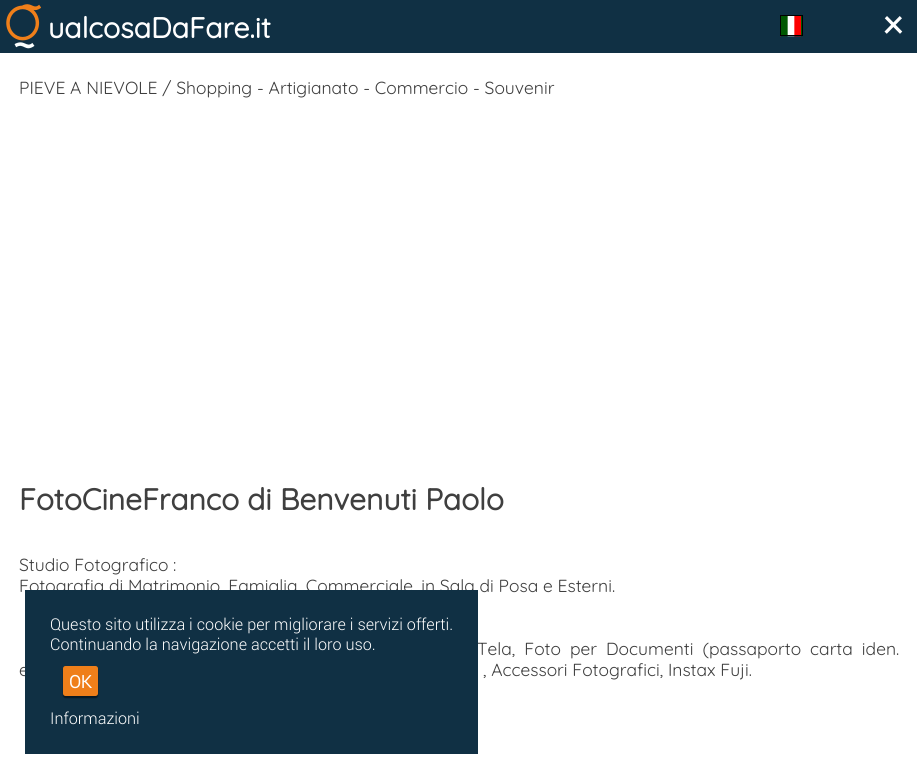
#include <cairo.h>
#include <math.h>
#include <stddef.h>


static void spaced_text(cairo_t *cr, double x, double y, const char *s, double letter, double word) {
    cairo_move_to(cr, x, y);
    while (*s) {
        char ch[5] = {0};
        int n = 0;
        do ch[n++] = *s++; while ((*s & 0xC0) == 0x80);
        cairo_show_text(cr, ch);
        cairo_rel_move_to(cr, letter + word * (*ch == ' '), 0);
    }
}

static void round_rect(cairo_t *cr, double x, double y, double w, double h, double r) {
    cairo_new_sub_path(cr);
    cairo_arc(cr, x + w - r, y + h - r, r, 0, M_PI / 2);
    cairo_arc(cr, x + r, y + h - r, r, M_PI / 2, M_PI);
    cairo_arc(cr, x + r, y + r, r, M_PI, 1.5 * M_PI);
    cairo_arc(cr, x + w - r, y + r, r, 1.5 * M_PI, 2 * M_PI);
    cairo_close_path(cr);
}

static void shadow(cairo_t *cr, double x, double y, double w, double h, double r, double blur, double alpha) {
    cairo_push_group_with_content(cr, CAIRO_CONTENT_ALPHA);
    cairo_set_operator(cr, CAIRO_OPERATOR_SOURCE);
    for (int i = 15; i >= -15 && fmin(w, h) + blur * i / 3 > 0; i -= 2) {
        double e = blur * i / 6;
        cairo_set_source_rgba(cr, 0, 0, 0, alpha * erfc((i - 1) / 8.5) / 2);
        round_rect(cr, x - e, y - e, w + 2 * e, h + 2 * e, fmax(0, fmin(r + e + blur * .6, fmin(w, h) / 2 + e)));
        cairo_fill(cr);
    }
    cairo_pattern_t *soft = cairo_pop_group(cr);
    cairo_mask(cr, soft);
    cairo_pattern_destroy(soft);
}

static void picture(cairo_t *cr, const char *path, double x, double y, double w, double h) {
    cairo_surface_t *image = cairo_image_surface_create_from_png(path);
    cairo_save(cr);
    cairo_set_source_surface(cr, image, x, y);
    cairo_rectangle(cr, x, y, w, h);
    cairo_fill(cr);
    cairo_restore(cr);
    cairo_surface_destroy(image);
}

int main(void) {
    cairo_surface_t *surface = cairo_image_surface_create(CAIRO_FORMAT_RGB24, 917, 778);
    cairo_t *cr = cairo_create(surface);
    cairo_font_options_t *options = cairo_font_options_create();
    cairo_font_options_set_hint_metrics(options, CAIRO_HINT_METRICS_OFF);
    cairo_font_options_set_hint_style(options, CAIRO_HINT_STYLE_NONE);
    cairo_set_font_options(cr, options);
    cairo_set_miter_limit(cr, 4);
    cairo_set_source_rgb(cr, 1, 1, 1);
    cairo_paint(cr);
    cairo_set_source_rgb(cr, 0.063, 0.188, 0.267);
    cairo_rectangle(cr, 0, 0, 917, 53);
    cairo_fill(cr);
    picture(cr, "img1.png", 6, 4, 35, 45);
    cairo_select_font_face(cr, "Quicksand", CAIRO_FONT_SLANT_NORMAL, CAIRO_FONT_WEIGHT_BOLD);
    cairo_set_font_size(cr, 28.75);
    cairo_set_source_rgb(cr, 1, 1, 1);
    cairo_move_to(cr, 48, 38);
    cairo_show_text(cr, "ualcosaDaFare.it");
    picture(cr, "img2.png", 780, 16, 23, 21);
    cairo_rectangle(cr, 780.5, 15.5, 22, 20);
    cairo_set_source_rgb(cr, 0, 0, 0);
    cairo_set_line_width(cr, 1);
    cairo_stroke(cr);
    cairo_select_font_face(cr, "Roboto", CAIRO_FONT_SLANT_NORMAL, CAIRO_FONT_WEIGHT_BOLD);
    cairo_set_font_size(cr, 38);
    cairo_set_source_rgb(cr, 1, 1, 1);
    cairo_move_to(cr, 883, 38);
    cairo_show_text(cr, "×");
    cairo_select_font_face(cr, "Quicksand", CAIRO_FONT_SLANT_NORMAL, CAIRO_FONT_WEIGHT_NORMAL);
    cairo_set_font_size(cr, 17.5);
    cairo_set_source_rgb(cr, 0.247, 0.247, 0.247);
    cairo_move_to(cr, 19, 94);
    cairo_show_text(cr, "PIEVE A NIEVOLE / Shopping - Artigianato - Commercio - Souvenir");
    cairo_select_font_face(cr, "Quicksand", CAIRO_FONT_SLANT_NORMAL, CAIRO_FONT_WEIGHT_BOLD);
    cairo_set_font_size(cr, 30);
    cairo_move_to(cr, 19, 510);
    cairo_show_text(cr, "FotoCineFranco di Benvenuti Paolo");
    cairo_select_font_face(cr, "Quicksand", CAIRO_FONT_SLANT_NORMAL, CAIRO_FONT_WEIGHT_NORMAL);
    cairo_set_font_size(cr, 17.5);
    cairo_move_to(cr, 19, 571);
    cairo_show_text(cr, "Studio Fotografico :");
    cairo_move_to(cr, 19, 592);
    cairo_show_text(cr, "Fotografia di Matrimonio, Famiglia, Commerciale, in Sala di Posa e Esterni.");
    spaced_text(cr, 477, 655, "Tela, Foto per Documenti (passaporto carta iden.", 0, 4.25);
    cairo_move_to(cr, 19, 676);
    cairo_show_text(cr, "e");
    cairo_move_to(cr, 483, 676);
    cairo_show_text(cr, ", Accessori Fotografici, Instax Fuji.");
    cairo_set_source_rgb(cr, 0.063, 0.188, 0.267);
    cairo_rectangle(cr, 25, 590, 453, 164);
    cairo_fill(cr);
    cairo_select_font_face(cr, "Roboto Light", CAIRO_FONT_SLANT_NORMAL, CAIRO_FONT_WEIGHT_NORMAL);
    cairo_set_font_size(cr, 16.25);
    cairo_set_source_rgb(cr, 1, 1, 1);
    cairo_move_to(cr, 50, 630);
    cairo_show_text(cr, "Questo sito utilizza i cookie per migliorare i servizi offerti.");
    cairo_move_to(cr, 50, 650);
    cairo_show_text(cr, "Continuando la navigazione accetti il loro uso.");
    cairo_set_source_rgb(cr, 0, 0, 0);
    shadow(cr, 63, 668, 35, 30, 2.5, 0.5, 0.5);
    cairo_set_source_rgb(cr, 0.937, 0.498, 0.102);
    round_rect(cr, 63, 666, 35, 30, 2.5);
    cairo_fill(cr);
    cairo_select_font_face(cr, "Roboto", CAIRO_FONT_SLANT_NORMAL, CAIRO_FONT_WEIGHT_BOLD);
    cairo_set_font_size(cr, 17.5);
    cairo_set_source_rgb(cr, 1, 1, 1);
    cairo_move_to(cr, 69, 688);
    cairo_show_text(cr, "OK");
    cairo_select_font_face(cr, "Roboto Light", CAIRO_FONT_SLANT_NORMAL, CAIRO_FONT_WEIGHT_NORMAL);
    cairo_set_font_size(cr, 16.25);
    cairo_move_to(cr, 50, 724);
    cairo_show_text(cr, "Informazioni");
    cairo_surface_write_to_png(surface, "page.png");
    cairo_font_options_destroy(options);
    cairo_destroy(cr);
    cairo_surface_destroy(surface);
    return 0;
}
